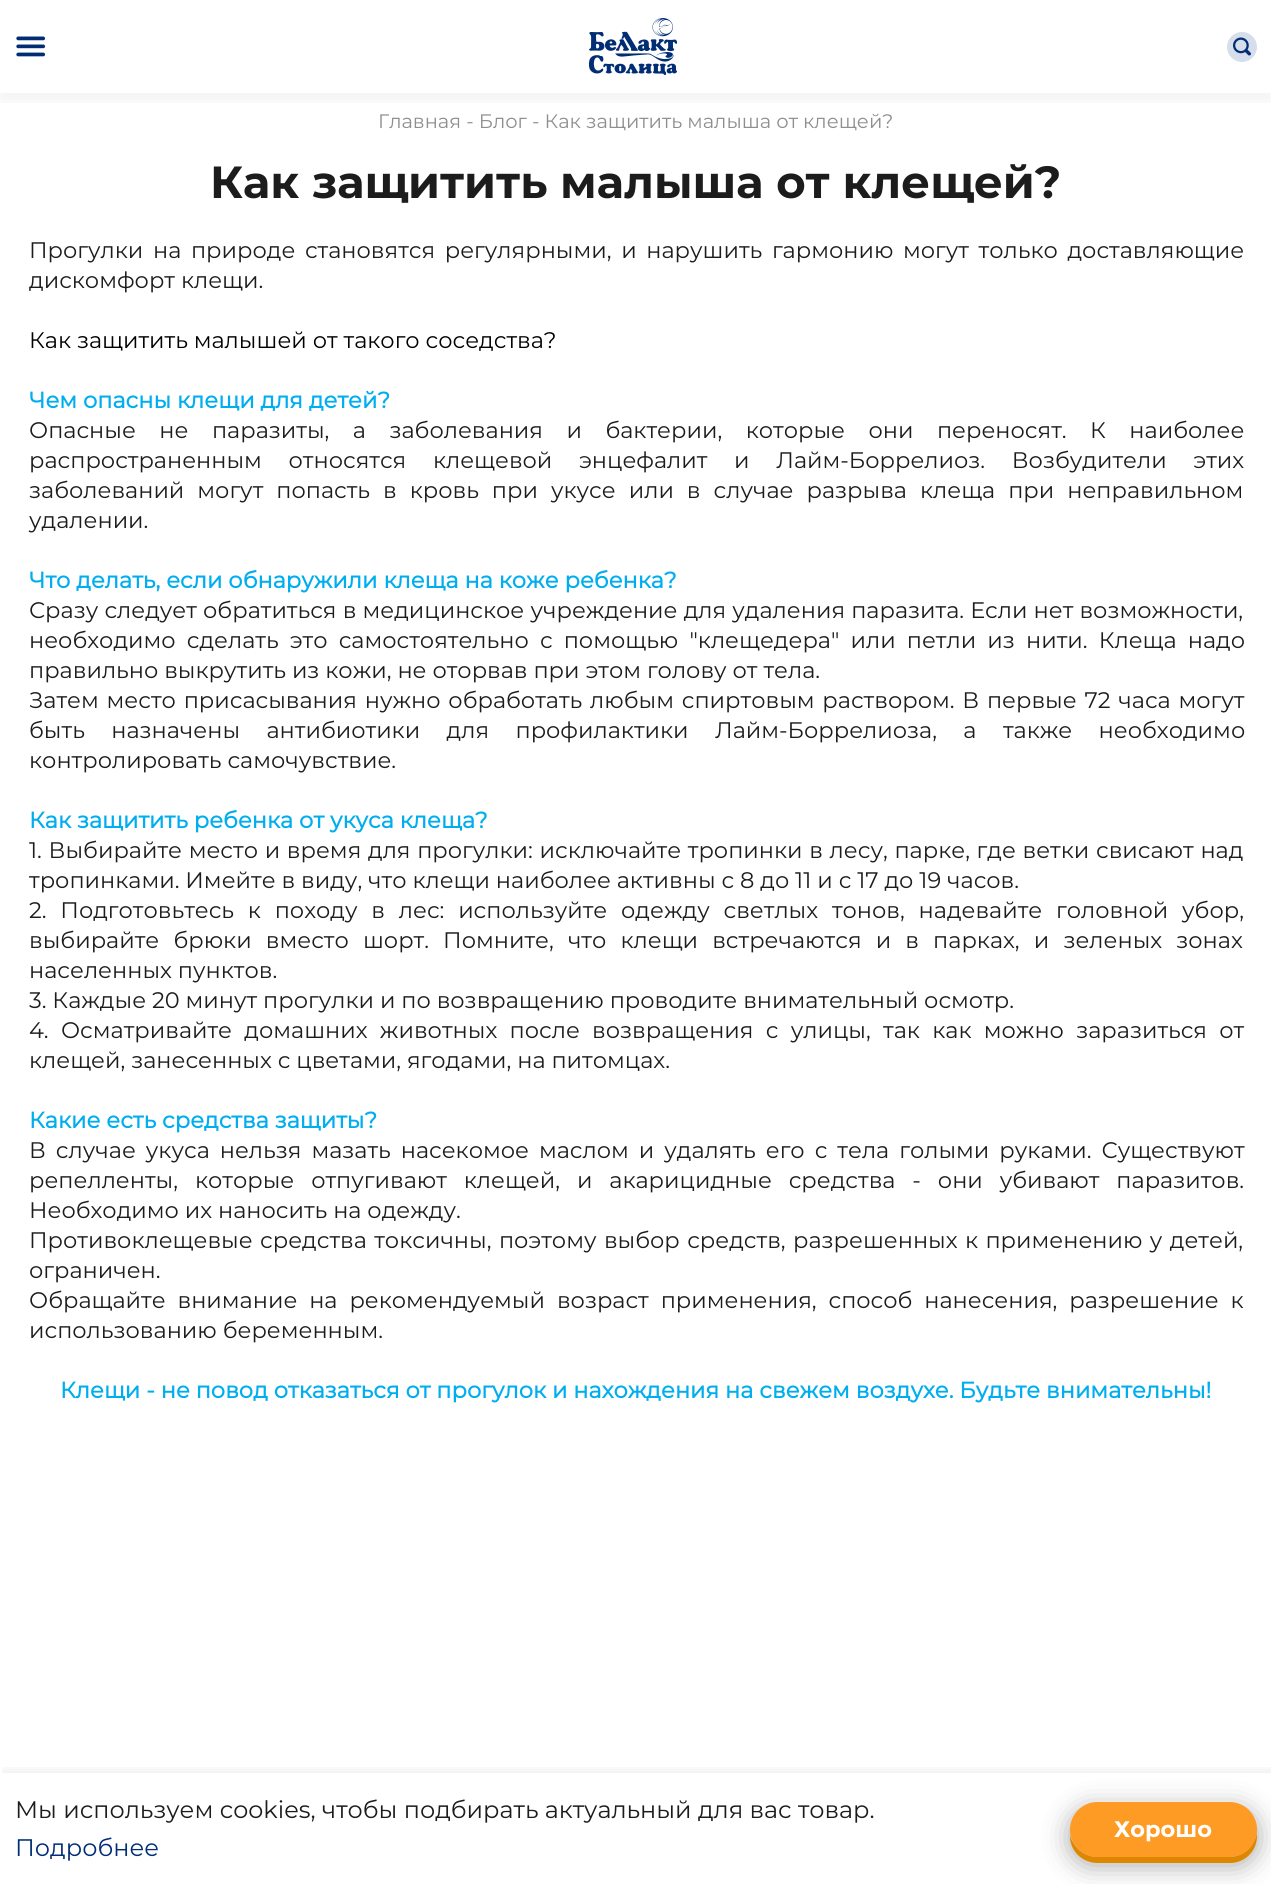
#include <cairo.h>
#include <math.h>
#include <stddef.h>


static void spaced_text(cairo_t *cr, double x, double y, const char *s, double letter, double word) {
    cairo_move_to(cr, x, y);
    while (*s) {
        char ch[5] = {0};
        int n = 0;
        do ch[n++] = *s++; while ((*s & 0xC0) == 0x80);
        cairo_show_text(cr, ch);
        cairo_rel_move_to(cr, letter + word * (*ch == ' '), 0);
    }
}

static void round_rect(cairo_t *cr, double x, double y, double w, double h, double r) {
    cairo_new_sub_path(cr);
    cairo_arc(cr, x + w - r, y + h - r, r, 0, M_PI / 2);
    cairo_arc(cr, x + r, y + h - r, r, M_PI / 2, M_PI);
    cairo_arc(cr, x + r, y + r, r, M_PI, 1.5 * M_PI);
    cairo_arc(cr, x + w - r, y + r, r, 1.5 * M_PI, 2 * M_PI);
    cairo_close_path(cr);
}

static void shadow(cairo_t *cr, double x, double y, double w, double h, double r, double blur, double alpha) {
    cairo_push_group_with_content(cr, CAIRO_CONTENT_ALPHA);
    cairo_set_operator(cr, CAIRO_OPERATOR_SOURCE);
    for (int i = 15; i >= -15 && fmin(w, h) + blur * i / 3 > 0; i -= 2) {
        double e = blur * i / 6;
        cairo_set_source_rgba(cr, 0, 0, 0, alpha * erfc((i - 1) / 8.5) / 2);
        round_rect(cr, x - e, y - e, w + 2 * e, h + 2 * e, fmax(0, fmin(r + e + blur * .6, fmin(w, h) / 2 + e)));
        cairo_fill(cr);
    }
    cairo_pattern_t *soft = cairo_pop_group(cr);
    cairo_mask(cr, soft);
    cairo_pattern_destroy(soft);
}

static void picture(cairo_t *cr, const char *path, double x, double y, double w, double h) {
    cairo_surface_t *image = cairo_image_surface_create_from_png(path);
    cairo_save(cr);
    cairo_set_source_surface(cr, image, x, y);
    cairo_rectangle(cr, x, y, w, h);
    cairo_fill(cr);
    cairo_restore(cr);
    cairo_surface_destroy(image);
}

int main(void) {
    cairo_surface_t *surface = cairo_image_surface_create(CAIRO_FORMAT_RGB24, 1271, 1884);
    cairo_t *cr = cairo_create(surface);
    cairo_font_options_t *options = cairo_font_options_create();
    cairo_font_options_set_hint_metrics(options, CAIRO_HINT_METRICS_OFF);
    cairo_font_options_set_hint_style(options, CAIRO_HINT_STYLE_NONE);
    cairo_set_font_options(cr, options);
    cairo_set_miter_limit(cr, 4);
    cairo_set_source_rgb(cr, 1, 1, 1);
    cairo_paint(cr);
    cairo_save(cr);
    cairo_rectangle(cr, 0, 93, 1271, 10);
    cairo_clip(cr);
    cairo_set_source_rgb(cr, 0, 0, 0);
    shadow(cr, 0, 8, 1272, 93, 0, 7.5, 0.05);
    cairo_restore(cr);
    picture(cr, "img1.png", 16, 36, 30, 21);
    picture(cr, "img2.png", 588, 18, 90, 57);
    cairo_set_source_rgb(cr, 0.839, 0.871, 0.925);
    cairo_arc(cr, 1242, 47, 15, 0, 2 * M_PI);
    cairo_fill(cr);
    picture(cr, "img3.png", 1233, 37, 18, 19);
    cairo_select_font_face(cr, "Montserrat", CAIRO_FONT_SLANT_NORMAL, CAIRO_FONT_WEIGHT_NORMAL);
    cairo_set_font_size(cr, 19.5);
    cairo_set_source_rgb(cr, 0.557, 0.557, 0.557);
    cairo_move_to(cr, 378, 128);
    cairo_show_text(cr, "Главная - Блог - Как защитить малыша от клещей?");
    cairo_select_font_face(cr, "Montserrat", CAIRO_FONT_SLANT_NORMAL, CAIRO_FONT_WEIGHT_BOLD);
    cairo_set_font_size(cr, 45);
    cairo_set_source_rgb(cr, 0.11, 0.11, 0.11);
    cairo_move_to(cr, 210, 198);
    cairo_show_text(cr, "Как защитить малыша от клещей?");
    cairo_select_font_face(cr, "Montserrat", CAIRO_FONT_SLANT_NORMAL, CAIRO_FONT_WEIGHT_NORMAL);
    cairo_set_font_size(cr, 22.5);
    spaced_text(cr, 29, 258, "Прогулки на природе становятся регулярными, и нарушить гармонию могут только доставляющие", 0, 3.75);
    cairo_move_to(cr, 29, 288);
    cairo_show_text(cr, "дискомфорт клещи.");
    cairo_set_source_rgb(cr, 0, 0, 0);
    cairo_move_to(cr, 29, 348);
    cairo_show_text(cr, "Как защитить малышей от такого соседства?");
    cairo_select_font_face(cr, "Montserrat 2", CAIRO_FONT_SLANT_NORMAL, CAIRO_FONT_WEIGHT_BOLD);
    cairo_set_source_rgb(cr, 0, 0.682, 0.937);
    cairo_move_to(cr, 29, 408);
    cairo_show_text(cr, "Чем опасны клещи для детей?");
    cairo_select_font_face(cr, "Montserrat", CAIRO_FONT_SLANT_NORMAL, CAIRO_FONT_WEIGHT_NORMAL);
    cairo_set_source_rgb(cr, 0.11, 0.11, 0.11);
    spaced_text(cr, 29, 438, "Опасные не паразиты, а заболевания и бактерии, которые они переносят. К наиболее", 0, 17.6);
    spaced_text(cr, 29, 468, "распространенным относятся клещевой энцефалит и Лайм-Боррелиоз. Возбудители этих", 0, 20.75);
    spaced_text(cr, 29, 498, "заболеваний могут попасть в кровь при укусе или в случае разрыва клеща при неправильном", 0, 7.1);
    cairo_move_to(cr, 29, 528);
    cairo_show_text(cr, "удалении.");
    cairo_select_font_face(cr, "Montserrat 2", CAIRO_FONT_SLANT_NORMAL, CAIRO_FONT_WEIGHT_BOLD);
    cairo_set_source_rgb(cr, 0, 0.682, 0.937);
    cairo_move_to(cr, 29, 588);
    cairo_show_text(cr, "Что делать, если обнаружили клеща на коже ребенка?");
    cairo_select_font_face(cr, "Montserrat", CAIRO_FONT_SLANT_NORMAL, CAIRO_FONT_WEIGHT_NORMAL);
    cairo_set_source_rgb(cr, 0.11, 0.11, 0.11);
    spaced_text(cr, 29, 618, "Сразу следует обратиться в медицинское учреждение для удаления паразита. Если нет возможности,", 0, 0.25);
    spaced_text(cr, 29, 648, "необходимо сделать это самостоятельно с помощью \"клещедера\" или петли из нити. Клеща надо", 0, 5.25);
    cairo_move_to(cr, 29, 678);
    cairo_show_text(cr, "правильно выкрутить из кожи, не оторвав при этом голову от тела.");
    spaced_text(cr, 29, 708, "Затем место присасывания нужно обработать любым спиртовым раствором. В первые 72 часа могут", 0, 1.9);
    spaced_text(cr, 29, 738, "быть назначены антибиотики для профилактики Лайм-Боррелиоза, а также необходимо", 0, 20.5);
    cairo_move_to(cr, 29, 768);
    cairo_show_text(cr, "контролировать самочувствие.");
    cairo_select_font_face(cr, "Montserrat 2", CAIRO_FONT_SLANT_NORMAL, CAIRO_FONT_WEIGHT_BOLD);
    cairo_set_source_rgb(cr, 0, 0.682, 0.937);
    cairo_move_to(cr, 29, 828);
    cairo_show_text(cr, "Как защитить ребенка от укуса клеща?");
    cairo_select_font_face(cr, "Montserrat", CAIRO_FONT_SLANT_NORMAL, CAIRO_FONT_WEIGHT_NORMAL);
    cairo_set_source_rgb(cr, 0.11, 0.11, 0.11);
    spaced_text(cr, 29, 858, "1. Выбирайте место и время для прогулки: исключайте тропинки в лесу, парке, где ветки свисают над", 0, 0.8);
    cairo_move_to(cr, 29, 888);
    cairo_show_text(cr, "тропинками. Имейте в виду, что клещи наиболее активны с 8 до 11 и с 17 до 19 часов.");
    spaced_text(cr, 29, 918, "2. Подготовьтесь к походу в лес: используйте одежду светлых тонов, надевайте головной убор,", 0, 7.9);
    spaced_text(cr, 29, 948, "выбирайте брюки вместо шорт. Помните, что клещи встречаются и в парках, и зеленых зонах", 0, 8.25);
    cairo_move_to(cr, 29, 978);
    cairo_show_text(cr, "населенных пунктов.");
    cairo_move_to(cr, 29, 1008);
    cairo_show_text(cr, "3. Каждые 20 минут прогулки и по возвращению проводите внимательный осмотр.");
    spaced_text(cr, 29, 1038, "4. Осматривайте домашних животных после возвращения с улицы, так как можно заразиться от", 0, 6.4);
    cairo_move_to(cr, 29, 1068);
    cairo_show_text(cr, "клещей, занесенных с цветами, ягодами, на питомцах.");
    cairo_select_font_face(cr, "Montserrat 2", CAIRO_FONT_SLANT_NORMAL, CAIRO_FONT_WEIGHT_BOLD);
    cairo_set_source_rgb(cr, 0, 0.682, 0.937);
    cairo_move_to(cr, 29, 1128);
    cairo_show_text(cr, "Какие есть средства защиты?");
    cairo_select_font_face(cr, "Montserrat", CAIRO_FONT_SLANT_NORMAL, CAIRO_FONT_WEIGHT_NORMAL);
    cairo_set_source_rgb(cr, 0.11, 0.11, 0.11);
    spaced_text(cr, 29, 1158, "В случае укуса нельзя мазать насекомое маслом и удалять его с тела голыми руками. Существуют", 0, 4.1);
    spaced_text(cr, 29, 1188, "репелленты, которые отпугивают клещей, и акарицидные средства - они убивают паразитов.", 0, 11);
    cairo_move_to(cr, 29, 1218);
    cairo_show_text(cr, "Необходимо их наносить на одежду.");
    spaced_text(cr, 29, 1248, "Противоклещевые средства токсичны, поэтому выбор средств, разрешенных к применению у детей,", 0, 1.5);
    cairo_move_to(cr, 29, 1278);
    cairo_show_text(cr, "ограничен.");
    spaced_text(cr, 29, 1308, "Обращайте внимание на рекомендуемый возраст применения, способ нанесения, разрешение к", 0, 6);
    cairo_move_to(cr, 29, 1338);
    cairo_show_text(cr, "использованию беременным.");
    cairo_select_font_face(cr, "Montserrat 2", CAIRO_FONT_SLANT_NORMAL, CAIRO_FONT_WEIGHT_BOLD);
    cairo_set_source_rgb(cr, 0, 0.682, 0.937);
    cairo_move_to(cr, 60, 1398);
    cairo_show_text(cr, "Клещи - не повод отказаться от прогулок и нахождения на свежем воздухе. Будьте внимательны!");
    cairo_save(cr);
    cairo_rectangle(cr, 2, 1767, 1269, 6);
    cairo_clip(cr);
    cairo_set_source_rgb(cr, 0, 0, 0);
    shadow(cr, 3, 1773, 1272, 111, 0, 7.5, 0.1);
    cairo_restore(cr);
    cairo_select_font_face(cr, "Montserrat", CAIRO_FONT_SLANT_NORMAL, CAIRO_FONT_WEIGHT_NORMAL);
    cairo_set_font_size(cr, 24);
    cairo_set_source_rgb(cr, 0.11, 0.11, 0.11);
    cairo_move_to(cr, 15, 1818);
    cairo_show_text(cr, "Мы используем cookies, чтобы подбирать актуальный для вас товар.");
    cairo_set_source_rgb(cr, 0, 0.176, 0.455);
    cairo_move_to(cr, 15, 1856);
    cairo_show_text(cr, "Подробнее");
    cairo_set_source_rgb(cr, 0, 0, 0);
    shadow(cr, 1070, 1809, 187, 56, 28, 13.5, 0.35);
    cairo_set_source_rgb(cr, 0.867, 0.529, 0);
    cairo_new_path(cr);
    cairo_move_to(cr, 1070, 1835);
    cairo_line_to(cr, 1070, 1836);
    cairo_curve_to(cr, 1070, 1851, 1082, 1863, 1098, 1863);
    cairo_line_to(cr, 1230, 1863);
    cairo_curve_to(cr, 1245, 1863, 1257, 1851, 1257, 1836);
    cairo_line_to(cr, 1257, 1832);
    cairo_curve_to(cr, 1255, 1846, 1244, 1857, 1229, 1857);
    cairo_line_to(cr, 1097, 1857);
    cairo_curve_to(cr, 1084, 1857, 1073, 1847, 1070, 1835);
    cairo_close_path(cr);
    cairo_fill(cr);
    cairo_set_source_rgb(cr, 0.996, 0.608, 0.145);
    round_rect(cr, 1070, 1802, 187, 55, 27.5);
    cairo_fill(cr);
    cairo_select_font_face(cr, "Montserrat", CAIRO_FONT_SLANT_NORMAL, CAIRO_FONT_WEIGHT_BOLD);
    cairo_set_font_size(cr, 22.5);
    cairo_set_source_rgb(cr, 1, 1, 1);
    cairo_move_to(cr, 1114, 1837);
    cairo_show_text(cr, "Хорошо");
    cairo_surface_write_to_png(surface, "page.png");
    cairo_font_options_destroy(options);
    cairo_destroy(cr);
    cairo_surface_destroy(surface);
    return 0;
}
